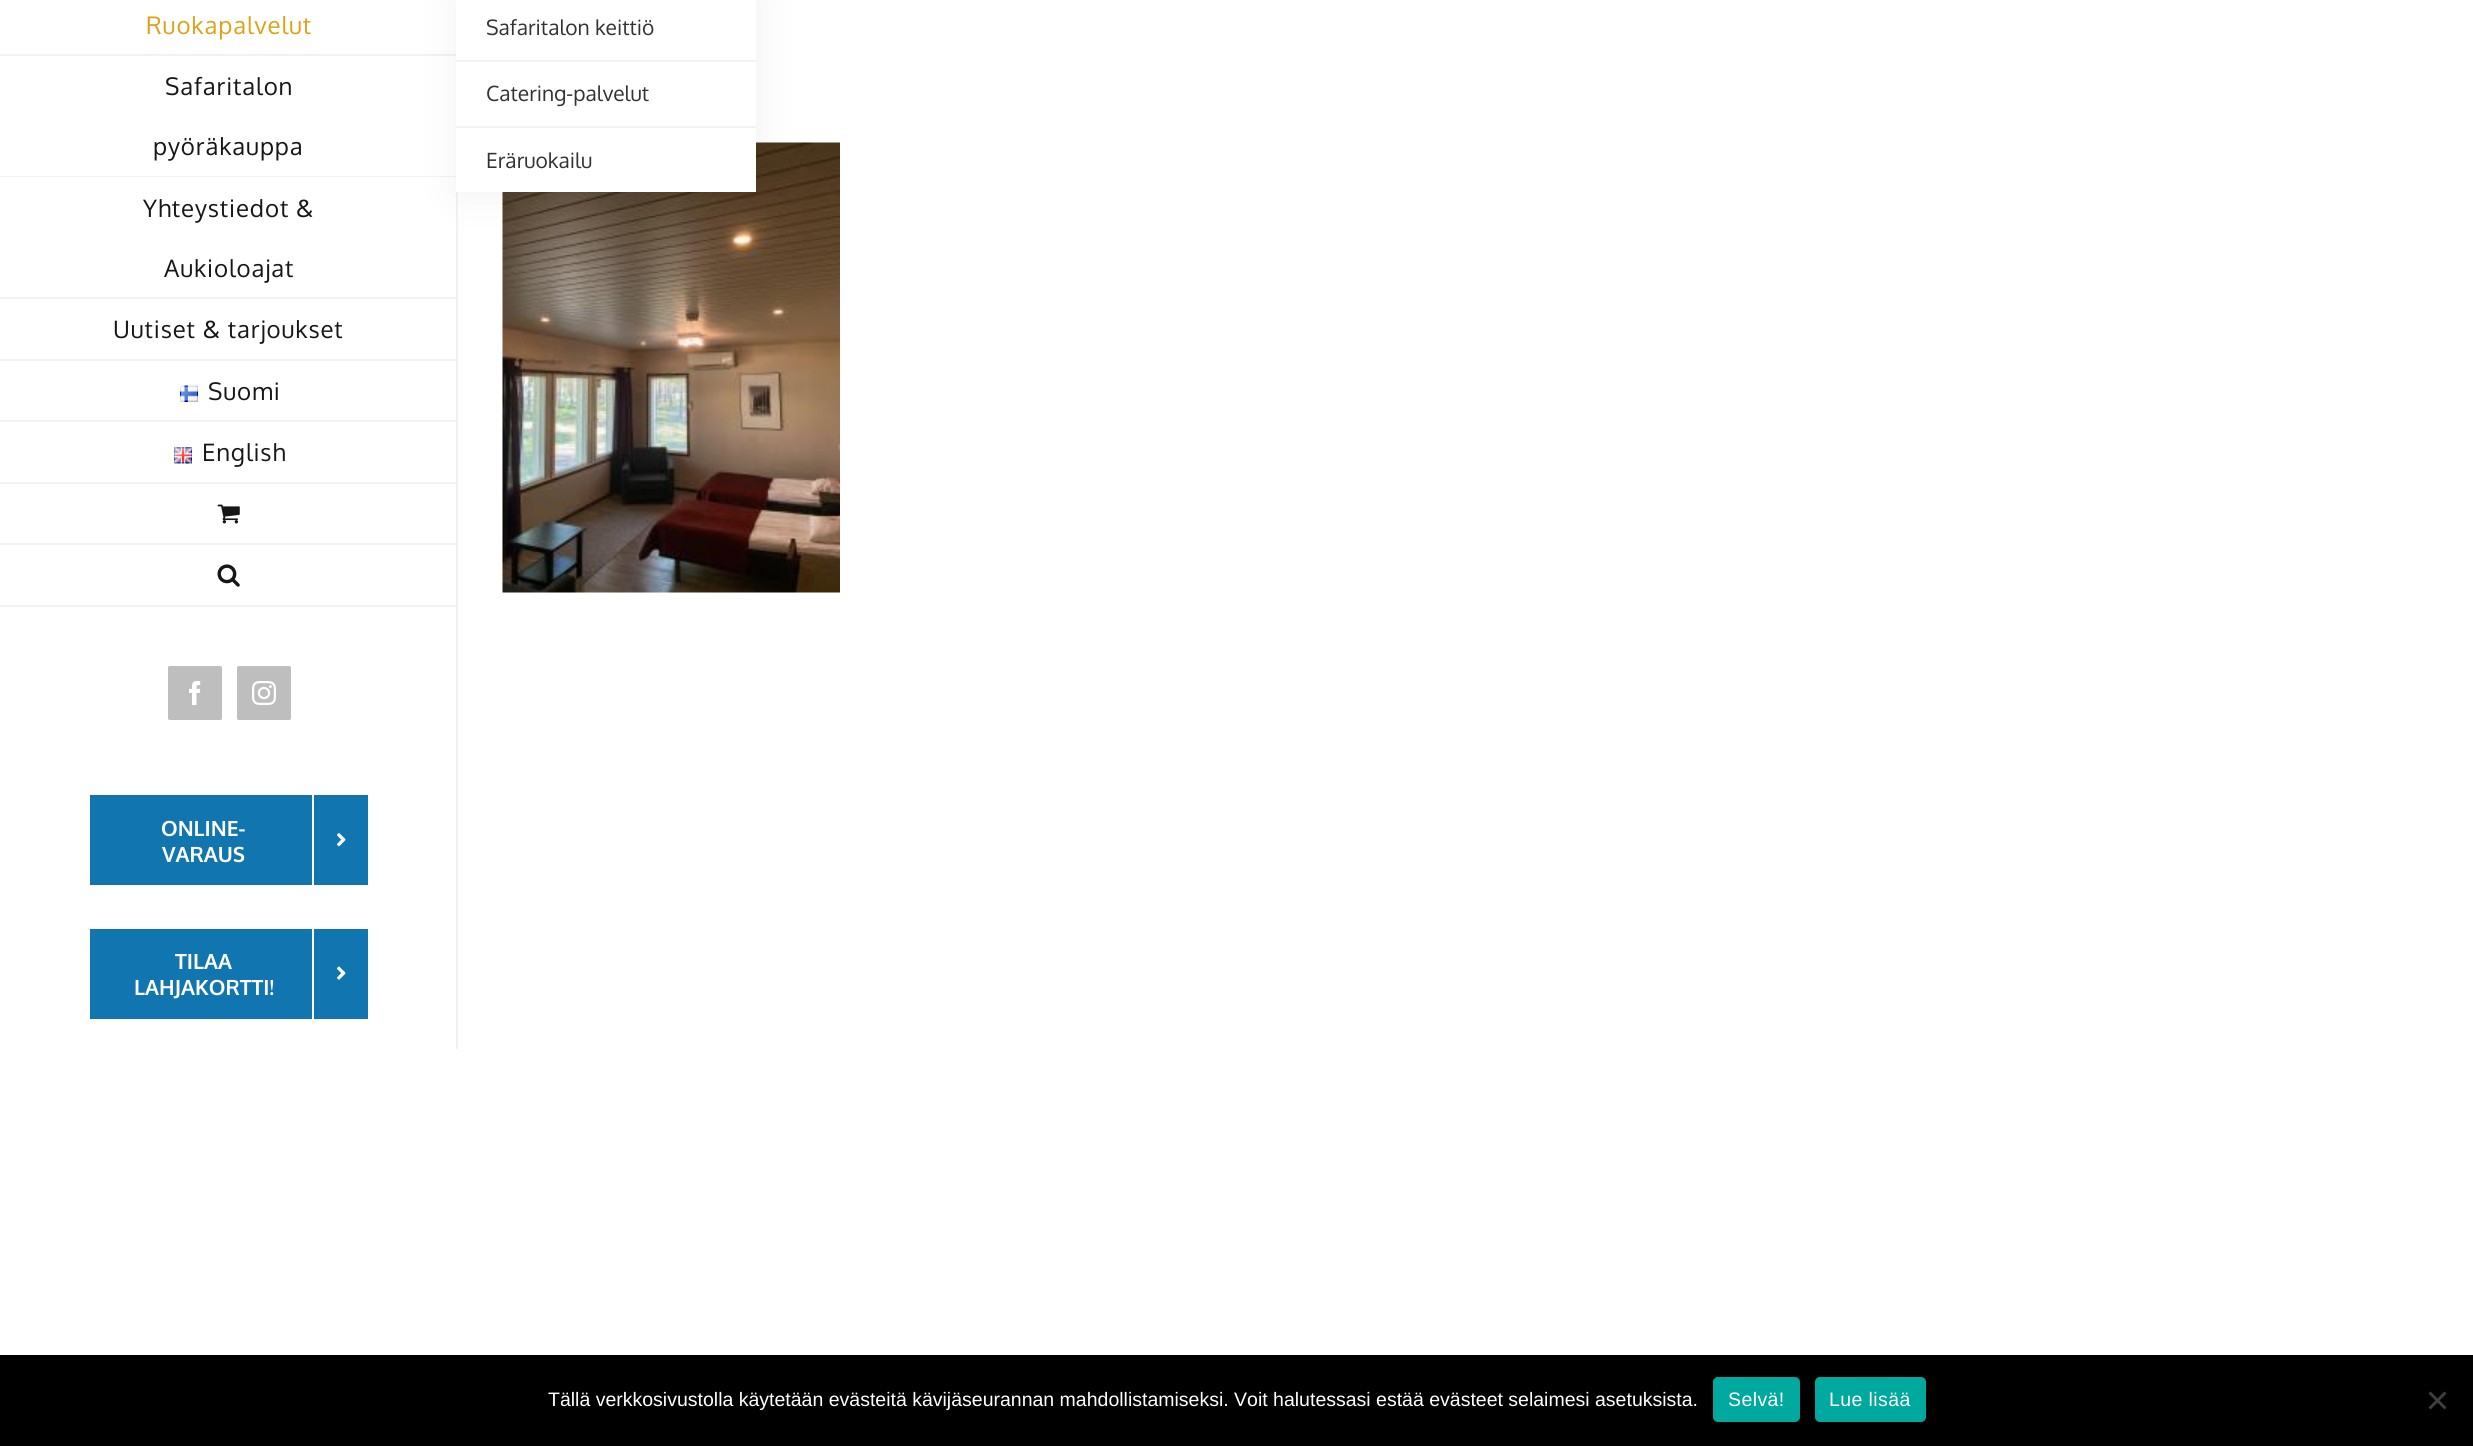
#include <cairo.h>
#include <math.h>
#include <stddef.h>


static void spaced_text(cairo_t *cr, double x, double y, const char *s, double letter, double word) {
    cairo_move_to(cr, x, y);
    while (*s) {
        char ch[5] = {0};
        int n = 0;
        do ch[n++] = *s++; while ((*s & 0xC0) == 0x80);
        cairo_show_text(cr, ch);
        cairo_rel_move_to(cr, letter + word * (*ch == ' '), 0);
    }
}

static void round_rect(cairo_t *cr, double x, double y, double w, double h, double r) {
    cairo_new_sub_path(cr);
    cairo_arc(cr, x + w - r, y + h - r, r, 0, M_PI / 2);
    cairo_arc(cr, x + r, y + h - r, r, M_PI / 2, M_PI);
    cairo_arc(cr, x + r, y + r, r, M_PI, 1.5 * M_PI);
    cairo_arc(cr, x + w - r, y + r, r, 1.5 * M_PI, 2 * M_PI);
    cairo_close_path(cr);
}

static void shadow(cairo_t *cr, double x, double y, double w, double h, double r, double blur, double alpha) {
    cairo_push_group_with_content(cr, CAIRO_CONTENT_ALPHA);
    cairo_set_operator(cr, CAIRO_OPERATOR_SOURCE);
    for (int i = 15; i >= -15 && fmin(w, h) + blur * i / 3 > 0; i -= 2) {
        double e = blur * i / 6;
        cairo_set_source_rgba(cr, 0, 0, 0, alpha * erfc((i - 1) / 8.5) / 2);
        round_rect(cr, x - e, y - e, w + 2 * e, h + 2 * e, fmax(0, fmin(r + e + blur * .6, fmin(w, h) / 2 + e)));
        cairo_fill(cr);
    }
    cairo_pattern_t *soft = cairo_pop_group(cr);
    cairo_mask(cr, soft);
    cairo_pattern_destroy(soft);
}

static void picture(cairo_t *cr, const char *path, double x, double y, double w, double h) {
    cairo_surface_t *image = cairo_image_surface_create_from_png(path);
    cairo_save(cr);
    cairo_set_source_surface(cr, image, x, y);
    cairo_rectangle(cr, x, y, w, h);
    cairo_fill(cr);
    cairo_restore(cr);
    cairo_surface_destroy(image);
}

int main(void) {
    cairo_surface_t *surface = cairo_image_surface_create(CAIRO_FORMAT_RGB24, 2473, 1446);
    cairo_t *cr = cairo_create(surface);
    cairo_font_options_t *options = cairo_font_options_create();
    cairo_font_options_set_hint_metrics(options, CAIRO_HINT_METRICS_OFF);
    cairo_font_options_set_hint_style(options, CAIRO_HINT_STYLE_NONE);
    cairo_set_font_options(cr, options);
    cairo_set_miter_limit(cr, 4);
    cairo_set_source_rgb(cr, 1, 1, 1);
    cairo_paint(cr);
    cairo_set_source_rgb(cr, 0.949, 0.949, 0.949);
    cairo_rectangle(cr, 0, 54, 458, 2);
    cairo_fill(cr);
    cairo_select_font_face(cr, "Oxygen", CAIRO_FONT_SLANT_NORMAL, CAIRO_FONT_WEIGHT_NORMAL);
    cairo_set_font_size(cr, 24);
    cairo_set_source_rgb(cr, 0.863, 0.635, 0.098);
    spaced_text(cr, 146, 34, "Ruokapalvelut", 0.9, 0);
    cairo_set_source_rgb(cr, 0.949, 0.949, 0.949);
    cairo_rectangle(cr, 0, 176, 458, 1);
    cairo_fill(cr);
    cairo_rectangle(cr, 456, 192, 2, 857);
    cairo_fill(cr);
    picture(cr, "img9.png", 502, 142, 338, 451);
    cairo_set_source_rgb(cr, 0, 0, 0);
    shadow(cr, 458, -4, 300, 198, 0, 22.5, 0.06);
    cairo_set_source_rgb(cr, 1, 1, 1);
    cairo_rectangle(cr, 456, 0, 300, 192);
    cairo_fill(cr);
    cairo_set_source_rgb(cr, 0.949, 0.949, 0.949);
    cairo_rectangle(cr, 456, 60, 300, 2);
    cairo_fill(cr);
    cairo_set_font_size(cr, 21);
    cairo_set_source_rgb(cr, 0.2, 0.2, 0.2);
    cairo_move_to(cr, 486, 35);
    cairo_show_text(cr, "Safaritalon keittiö");
    cairo_set_source_rgb(cr, 0.949, 0.949, 0.949);
    cairo_rectangle(cr, 456, 126, 300, 2);
    cairo_fill(cr);
    cairo_set_source_rgb(cr, 0.2, 0.2, 0.2);
    cairo_move_to(cr, 486, 101);
    cairo_show_text(cr, "Catering-palvelut");
    cairo_move_to(cr, 486, 168);
    cairo_show_text(cr, "Eräruokailu");
    cairo_set_font_size(cr, 24);
    cairo_set_source_rgb(cr, 0.09, 0.09, 0.09);
    spaced_text(cr, 165, 95, "Safaritalon", 0.9, 0);
    spaced_text(cr, 153, 155, "pyöräkauppa", 0.9, 0);
    cairo_set_source_rgb(cr, 0.949, 0.949, 0.949);
    cairo_rectangle(cr, 0, 297, 458, 2);
    cairo_fill(cr);
    cairo_set_source_rgb(cr, 0.09, 0.09, 0.09);
    spaced_text(cr, 143, 217, "Yhteystiedot &", 0.9, 0);
    spaced_text(cr, 164, 277, "Aukioloajat", 0.9, 0);
    cairo_set_source_rgb(cr, 0.949, 0.949, 0.949);
    cairo_rectangle(cr, 0, 359, 458, 2);
    cairo_fill(cr);
    cairo_set_source_rgb(cr, 0.09, 0.09, 0.09);
    spaced_text(cr, 113, 338, "Uutiset & tarjoukset", 0.9, 0);
    cairo_set_source_rgb(cr, 0.949, 0.949, 0.949);
    cairo_rectangle(cr, 0, 420, 458, 2);
    cairo_fill(cr);
    picture(cr, "img1.png", 180, 385, 18, 17);
    cairo_set_source_rgb(cr, 0.09, 0.09, 0.09);
    spaced_text(cr, 208, 400, "Suomi", 0.9, 0);
    cairo_set_source_rgb(cr, 0.949, 0.949, 0.949);
    cairo_rectangle(cr, 0, 482, 458, 2);
    cairo_fill(cr);
    picture(cr, "img2.png", 174, 447, 18, 17);
    cairo_set_source_rgb(cr, 0.09, 0.09, 0.09);
    spaced_text(cr, 202, 461, "English", 0.9, 0);
    cairo_set_source_rgb(cr, 0.949, 0.949, 0.949);
    cairo_rectangle(cr, 0, 543, 458, 2);
    cairo_fill(cr);
    picture(cr, "img3.png", 217, 504, 23, 20);
    cairo_rectangle(cr, 0, 605, 458, 2);
    cairo_fill(cr);
    picture(cr, "img4.png", 217, 564, 23, 23);
    cairo_set_source_rgb(cr, 0.745, 0.745, 0.745);
    round_rect(cr, 169, 667, 52, 52, 0.5);
    cairo_fill_preserve(cr);
    cairo_stroke(cr);
    picture(cr, "img5.png", 189, 681, 12, 24);
    round_rect(cr, 238, 667, 52, 52, 0.5);
    cairo_fill_preserve(cr);
    cairo_stroke(cr);
    picture(cr, "img6.png", 252, 681, 24, 24);
    cairo_set_source_rgb(cr, 0.067, 0.459, 0.69);
    cairo_rectangle(cr, 90, 795, 278, 90);
    cairo_fill(cr);
    cairo_select_font_face(cr, "Oxygen", CAIRO_FONT_SLANT_NORMAL, CAIRO_FONT_WEIGHT_BOLD);
    cairo_set_font_size(cr, 21);
    cairo_set_source_rgb(cr, 1, 1, 1);
    cairo_move_to(cr, 161, 836);
    cairo_show_text(cr, "ONLINE-");
    cairo_move_to(cr, 162, 862);
    cairo_show_text(cr, "VARAUS");
    cairo_rectangle(cr, 312, 795, 2, 90);
    cairo_fill(cr);
    picture(cr, "img7.png", 337, 833, 9, 14);
    cairo_set_source_rgb(cr, 0.067, 0.459, 0.69);
    cairo_rectangle(cr, 90, 929, 278, 90);
    cairo_fill(cr);
    cairo_set_source_rgb(cr, 1, 1, 1);
    cairo_move_to(cr, 175, 969);
    cairo_show_text(cr, "TILAA");
    cairo_move_to(cr, 134, 995);
    cairo_show_text(cr, "LAHJAKORTTI!");
    cairo_rectangle(cr, 312, 929, 2, 90);
    cairo_fill(cr);
    picture(cr, "img8.png", 337, 966, 9, 14);
    cairo_set_source_rgb(cr, 0, 0, 0);
    cairo_rectangle(cr, 0, 1355, 2473, 91);
    cairo_fill(cr);
    cairo_select_font_face(cr, "Liberation Sans", CAIRO_FONT_SLANT_NORMAL, CAIRO_FONT_WEIGHT_NORMAL);
    cairo_set_font_size(cr, 19.5);
    cairo_set_source_rgb(cr, 1, 1, 1);
    cairo_move_to(cr, 548, 1406);
    cairo_show_text(cr, "Tällä verkkosivustolla käytetään evästeitä kävijäseurannan mahdollistamiseksi. Voit halutessasi estää evästeet selaimesi asetuksista.");
    cairo_set_source_rgb(cr, 0, 0.663, 0.616);
    round_rect(cr, 1713, 1377, 87, 45, 5);
    cairo_fill(cr);
    cairo_set_source_rgb(cr, 1, 1, 1);
    spaced_text(cr, 1728, 1406, "Selvä!", 0.4, 0);
    cairo_set_source_rgb(cr, 0, 0.663, 0.616);
    round_rect(cr, 1815, 1377, 111, 45, 5);
    cairo_fill(cr);
    cairo_set_source_rgb(cr, 1, 1, 1);
    spaced_text(cr, 1829, 1406, "Lue lisää", 0.4, 0);
    cairo_set_source_rgb(cr, 0.251, 0.251, 0.251);
    cairo_new_path(cr);
    cairo_move_to(cr, 2444.5, 1391.5);
    cairo_line_to(cr, 2446.5, 1393.5);
    cairo_line_to(cr, 2430.5, 1409.5);
    cairo_line_to(cr, 2428.5, 1407.5);
    cairo_close_path(cr);
    cairo_fill(cr);
    cairo_new_path(cr);
    cairo_move_to(cr, 2428.5, 1393.5);
    cairo_line_to(cr, 2430.5, 1391.5);
    cairo_line_to(cr, 2446.5, 1407.5);
    cairo_line_to(cr, 2444.5, 1409.5);
    cairo_close_path(cr);
    cairo_fill(cr);
    cairo_surface_write_to_png(surface, "page.png");
    cairo_font_options_destroy(options);
    cairo_destroy(cr);
    cairo_surface_destroy(surface);
    return 0;
}
